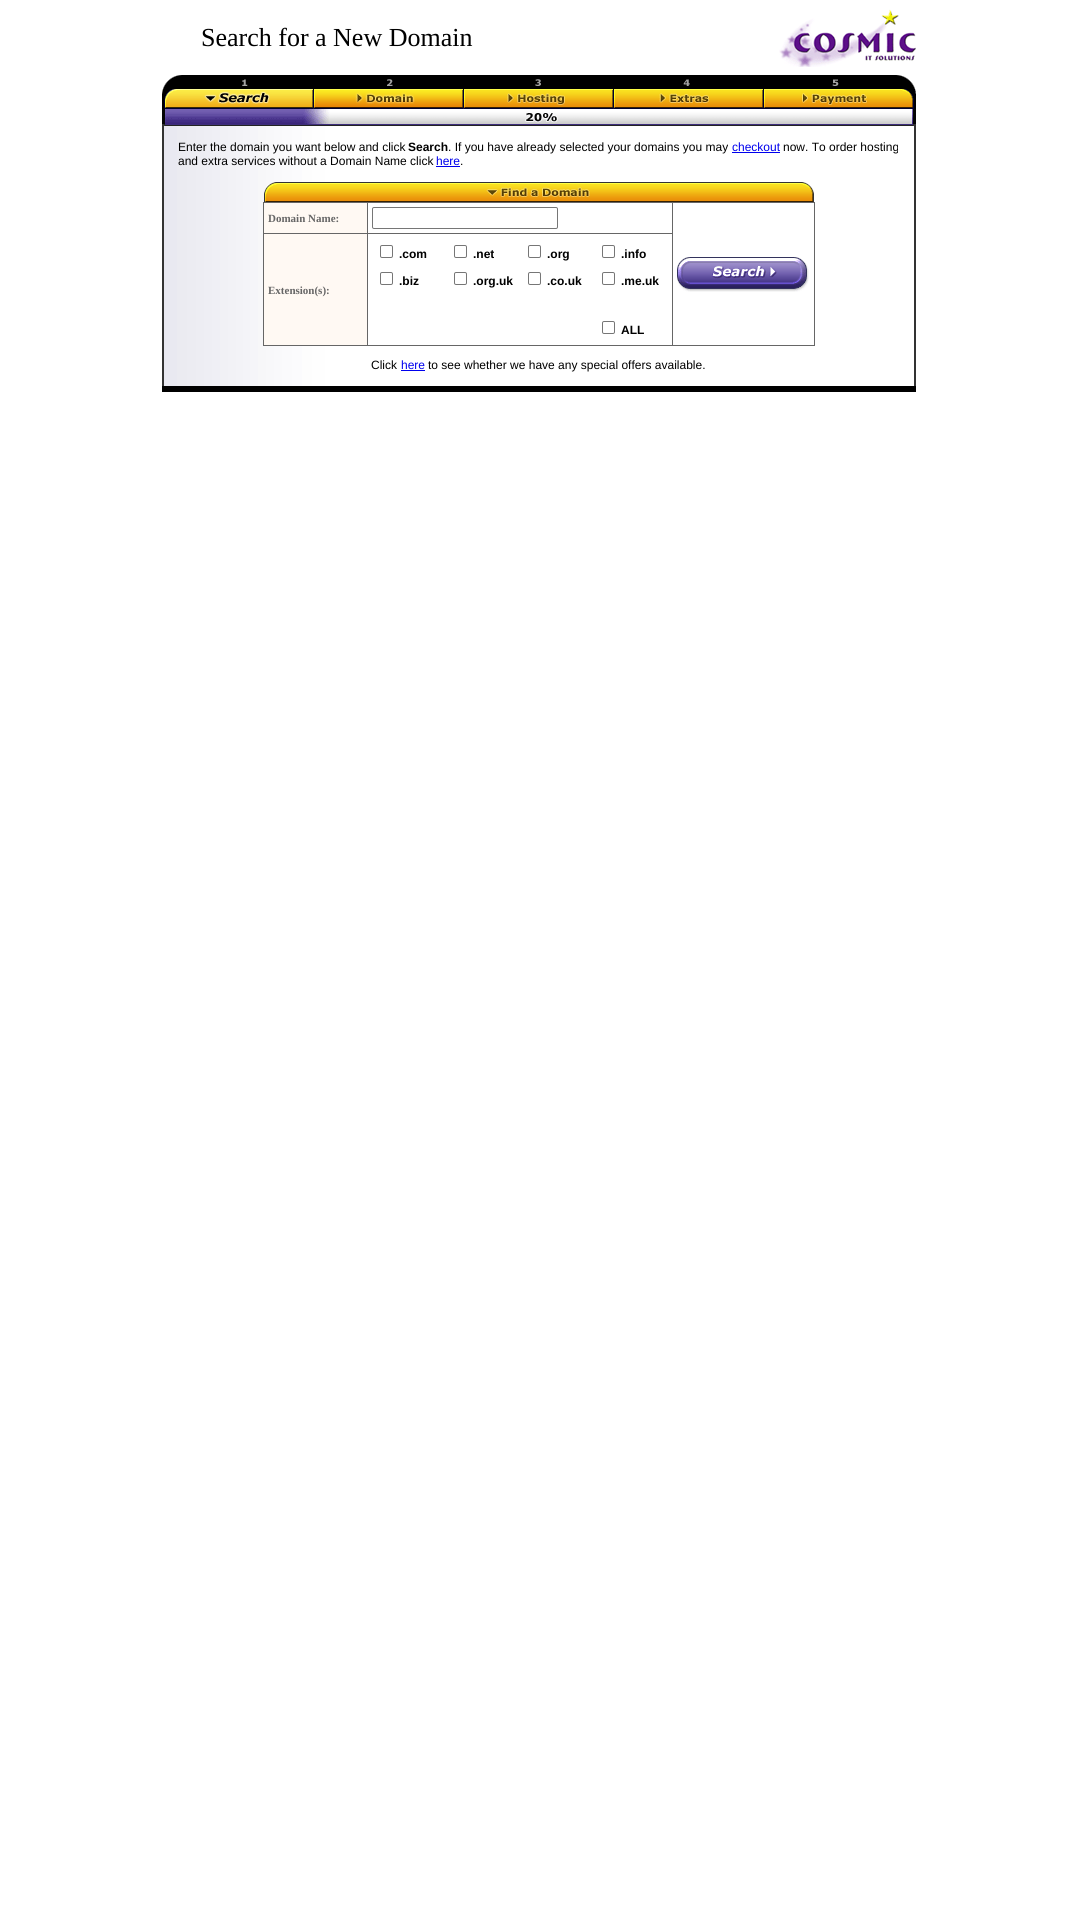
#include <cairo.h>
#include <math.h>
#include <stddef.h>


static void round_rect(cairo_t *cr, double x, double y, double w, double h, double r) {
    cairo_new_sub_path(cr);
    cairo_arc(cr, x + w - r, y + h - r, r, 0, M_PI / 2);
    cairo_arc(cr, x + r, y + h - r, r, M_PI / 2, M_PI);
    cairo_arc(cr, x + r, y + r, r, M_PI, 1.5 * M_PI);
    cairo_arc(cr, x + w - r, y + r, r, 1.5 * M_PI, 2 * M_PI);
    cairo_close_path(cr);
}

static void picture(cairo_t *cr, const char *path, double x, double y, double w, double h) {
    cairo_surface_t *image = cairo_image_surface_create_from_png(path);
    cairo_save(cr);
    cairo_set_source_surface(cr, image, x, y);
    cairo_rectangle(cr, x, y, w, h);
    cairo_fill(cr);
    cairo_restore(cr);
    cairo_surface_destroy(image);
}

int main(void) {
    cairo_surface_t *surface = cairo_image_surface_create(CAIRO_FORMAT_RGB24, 1077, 1920);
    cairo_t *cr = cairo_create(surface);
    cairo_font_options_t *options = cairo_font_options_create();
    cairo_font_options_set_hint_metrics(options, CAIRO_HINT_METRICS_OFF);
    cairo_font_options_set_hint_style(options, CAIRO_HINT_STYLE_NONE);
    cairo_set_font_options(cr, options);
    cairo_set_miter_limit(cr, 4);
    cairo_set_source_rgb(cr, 1, 1, 1);
    cairo_paint(cr);
    cairo_select_font_face(cr, "Liberation Serif", CAIRO_FONT_SLANT_NORMAL, CAIRO_FONT_WEIGHT_NORMAL);
    cairo_set_font_size(cr, 26);
    cairo_set_source_rgb(cr, 0, 0, 0);
    cairo_move_to(cr, 201, 46);
    cairo_show_text(cr, "Search for a New Domain");
    picture(cr, "img1.png", 779, 9, 137, 58);
    picture(cr, "img2.png", 163, 75, 752, 14);
    picture(cr, "img3.png", 162, 89, 151, 20);
    picture(cr, "img4.png", 313, 89, 150, 20);
    picture(cr, "img5.png", 463, 89, 150, 20);
    picture(cr, "img6.png", 613, 89, 150, 20);
    picture(cr, "img7.png", 763, 89, 153, 20);
    picture(cr, "img8.png", 162, 109, 754, 17);
    picture(cr, "img9.png", 162, 126, 754, 260);
    cairo_select_font_face(cr, "Liberation Sans", CAIRO_FONT_SLANT_NORMAL, CAIRO_FONT_WEIGHT_NORMAL);
    cairo_set_font_size(cr, 12);
    cairo_move_to(cr, 178, 151);
    cairo_show_text(cr, "Enter the domain you want below and click");
    cairo_select_font_face(cr, "Liberation Sans", CAIRO_FONT_SLANT_NORMAL, CAIRO_FONT_WEIGHT_BOLD);
    cairo_move_to(cr, 408, 151);
    cairo_show_text(cr, "Search");
    cairo_select_font_face(cr, "Liberation Sans", CAIRO_FONT_SLANT_NORMAL, CAIRO_FONT_WEIGHT_NORMAL);
    cairo_move_to(cr, 448, 151);
    cairo_show_text(cr, ". If you have already selected your domains you may");
    cairo_set_source_rgb(cr, 0, 0, 0.933);
    cairo_move_to(cr, 732, 151);
    cairo_show_text(cr, "checkout");
    cairo_rectangle(cr, 732, 152, 48, 1);
    cairo_fill(cr);
    cairo_set_source_rgb(cr, 0, 0, 0);
    cairo_move_to(cr, 783, 151);
    cairo_show_text(cr, "now. To order hosting");
    cairo_move_to(cr, 178, 165);
    cairo_show_text(cr, "and extra services without a Domain Name click");
    cairo_set_source_rgb(cr, 0, 0, 0.933);
    cairo_move_to(cr, 436, 165);
    cairo_show_text(cr, "here");
    cairo_rectangle(cr, 436, 166, 24, 1);
    cairo_fill(cr);
    cairo_set_source_rgb(cr, 0, 0, 0);
    cairo_move_to(cr, 460, 165);
    cairo_show_text(cr, ".");
    picture(cr, "img10.png", 264, 182, 550, 20);
    cairo_set_source_rgb(cr, 0.4, 0.4, 0.4);
    cairo_rectangle(cr, 263, 202, 552, 144);
    cairo_fill(cr);
    cairo_set_source_rgb(cr, 1, 0.976, 0.953);
    cairo_rectangle(cr, 264, 203, 103, 30);
    cairo_fill(cr);
    cairo_select_font_face(cr, "Liberation Serif", CAIRO_FONT_SLANT_NORMAL, CAIRO_FONT_WEIGHT_BOLD);
    cairo_set_font_size(cr, 11);
    cairo_set_source_rgb(cr, 0.4, 0.4, 0.4);
    cairo_move_to(cr, 268, 222);
    cairo_show_text(cr, "Domain Name:");
    cairo_set_source_rgb(cr, 1, 1, 1);
    cairo_rectangle(cr, 368, 203, 304, 30);
    cairo_fill(cr);
    round_rect(cr, 372.5, 207.5, 185, 21, 1.5);
    cairo_set_source_rgb(cr, 0.463, 0.463, 0.463);
    cairo_set_line_width(cr, 1);
    cairo_stroke(cr);
    cairo_set_source_rgb(cr, 1, 1, 1);
    cairo_rectangle(cr, 673, 203, 141, 142);
    cairo_fill(cr);
    picture(cr, "img11.png", 677, 257, 132, 35);
    cairo_set_source_rgb(cr, 1, 0.976, 0.953);
    cairo_rectangle(cr, 264, 234, 103, 111);
    cairo_fill(cr);
    cairo_set_source_rgb(cr, 0.4, 0.4, 0.4);
    cairo_move_to(cr, 268, 294);
    cairo_show_text(cr, "Extension(s):");
    cairo_set_source_rgb(cr, 1, 1, 1);
    cairo_rectangle(cr, 368, 234, 304, 111);
    cairo_fill(cr);
    round_rect(cr, 380.5, 245.5, 12, 12, 1.5);
    cairo_set_source_rgb(cr, 0.463, 0.463, 0.463);
    cairo_stroke(cr);
    cairo_select_font_face(cr, "Liberation Sans", CAIRO_FONT_SLANT_NORMAL, CAIRO_FONT_WEIGHT_BOLD);
    cairo_set_font_size(cr, 12);
    cairo_set_source_rgb(cr, 0, 0, 0);
    cairo_move_to(cr, 399, 258);
    cairo_show_text(cr, ".com");
    round_rect(cr, 454.5, 245.5, 12, 12, 1.5);
    cairo_set_source_rgb(cr, 0.463, 0.463, 0.463);
    cairo_stroke(cr);
    cairo_set_source_rgb(cr, 0, 0, 0);
    cairo_move_to(cr, 473, 258);
    cairo_show_text(cr, ".net");
    round_rect(cr, 528.5, 245.5, 12, 12, 1.5);
    cairo_set_source_rgb(cr, 0.463, 0.463, 0.463);
    cairo_stroke(cr);
    cairo_set_source_rgb(cr, 0, 0, 0);
    cairo_move_to(cr, 547, 258);
    cairo_show_text(cr, ".org");
    round_rect(cr, 602.5, 245.5, 12, 12, 1.5);
    cairo_set_source_rgb(cr, 0.463, 0.463, 0.463);
    cairo_stroke(cr);
    cairo_set_source_rgb(cr, 0, 0, 0);
    cairo_move_to(cr, 621, 258);
    cairo_show_text(cr, ".info");
    round_rect(cr, 380.5, 272.5, 12, 12, 1.5);
    cairo_set_source_rgb(cr, 0.463, 0.463, 0.463);
    cairo_stroke(cr);
    cairo_set_source_rgb(cr, 0, 0, 0);
    cairo_move_to(cr, 399, 285);
    cairo_show_text(cr, ".biz");
    round_rect(cr, 454.5, 272.5, 12, 12, 1.5);
    cairo_set_source_rgb(cr, 0.463, 0.463, 0.463);
    cairo_stroke(cr);
    cairo_set_source_rgb(cr, 0, 0, 0);
    cairo_move_to(cr, 473, 285);
    cairo_show_text(cr, ".org.uk");
    round_rect(cr, 528.5, 272.5, 12, 12, 1.5);
    cairo_set_source_rgb(cr, 0.463, 0.463, 0.463);
    cairo_stroke(cr);
    cairo_set_source_rgb(cr, 0, 0, 0);
    cairo_move_to(cr, 547, 285);
    cairo_show_text(cr, ".co.uk");
    round_rect(cr, 602.5, 272.5, 12, 12, 1.5);
    cairo_set_source_rgb(cr, 0.463, 0.463, 0.463);
    cairo_stroke(cr);
    cairo_set_source_rgb(cr, 0, 0, 0);
    cairo_move_to(cr, 621, 285);
    cairo_show_text(cr, ".me.uk");
    round_rect(cr, 602.5, 321.5, 12, 12, 1.5);
    cairo_set_source_rgb(cr, 0.463, 0.463, 0.463);
    cairo_stroke(cr);
    cairo_set_source_rgb(cr, 0, 0, 0);
    cairo_move_to(cr, 621, 334);
    cairo_show_text(cr, "ALL");
    cairo_select_font_face(cr, "Liberation Sans", CAIRO_FONT_SLANT_NORMAL, CAIRO_FONT_WEIGHT_NORMAL);
    cairo_move_to(cr, 371, 369);
    cairo_show_text(cr, "Click");
    cairo_set_source_rgb(cr, 0, 0, 0.933);
    cairo_move_to(cr, 401, 369);
    cairo_show_text(cr, "here");
    cairo_rectangle(cr, 401, 370, 24, 1);
    cairo_fill(cr);
    cairo_set_source_rgb(cr, 0, 0, 0);
    cairo_move_to(cr, 428, 369);
    cairo_show_text(cr, "to see whether we have any special offers available.");
    cairo_rectangle(cr, 162, 386, 754, 6);
    cairo_fill(cr);
    cairo_surface_write_to_png(surface, "page.png");
    cairo_font_options_destroy(options);
    cairo_destroy(cr);
    cairo_surface_destroy(surface);
    return 0;
}
